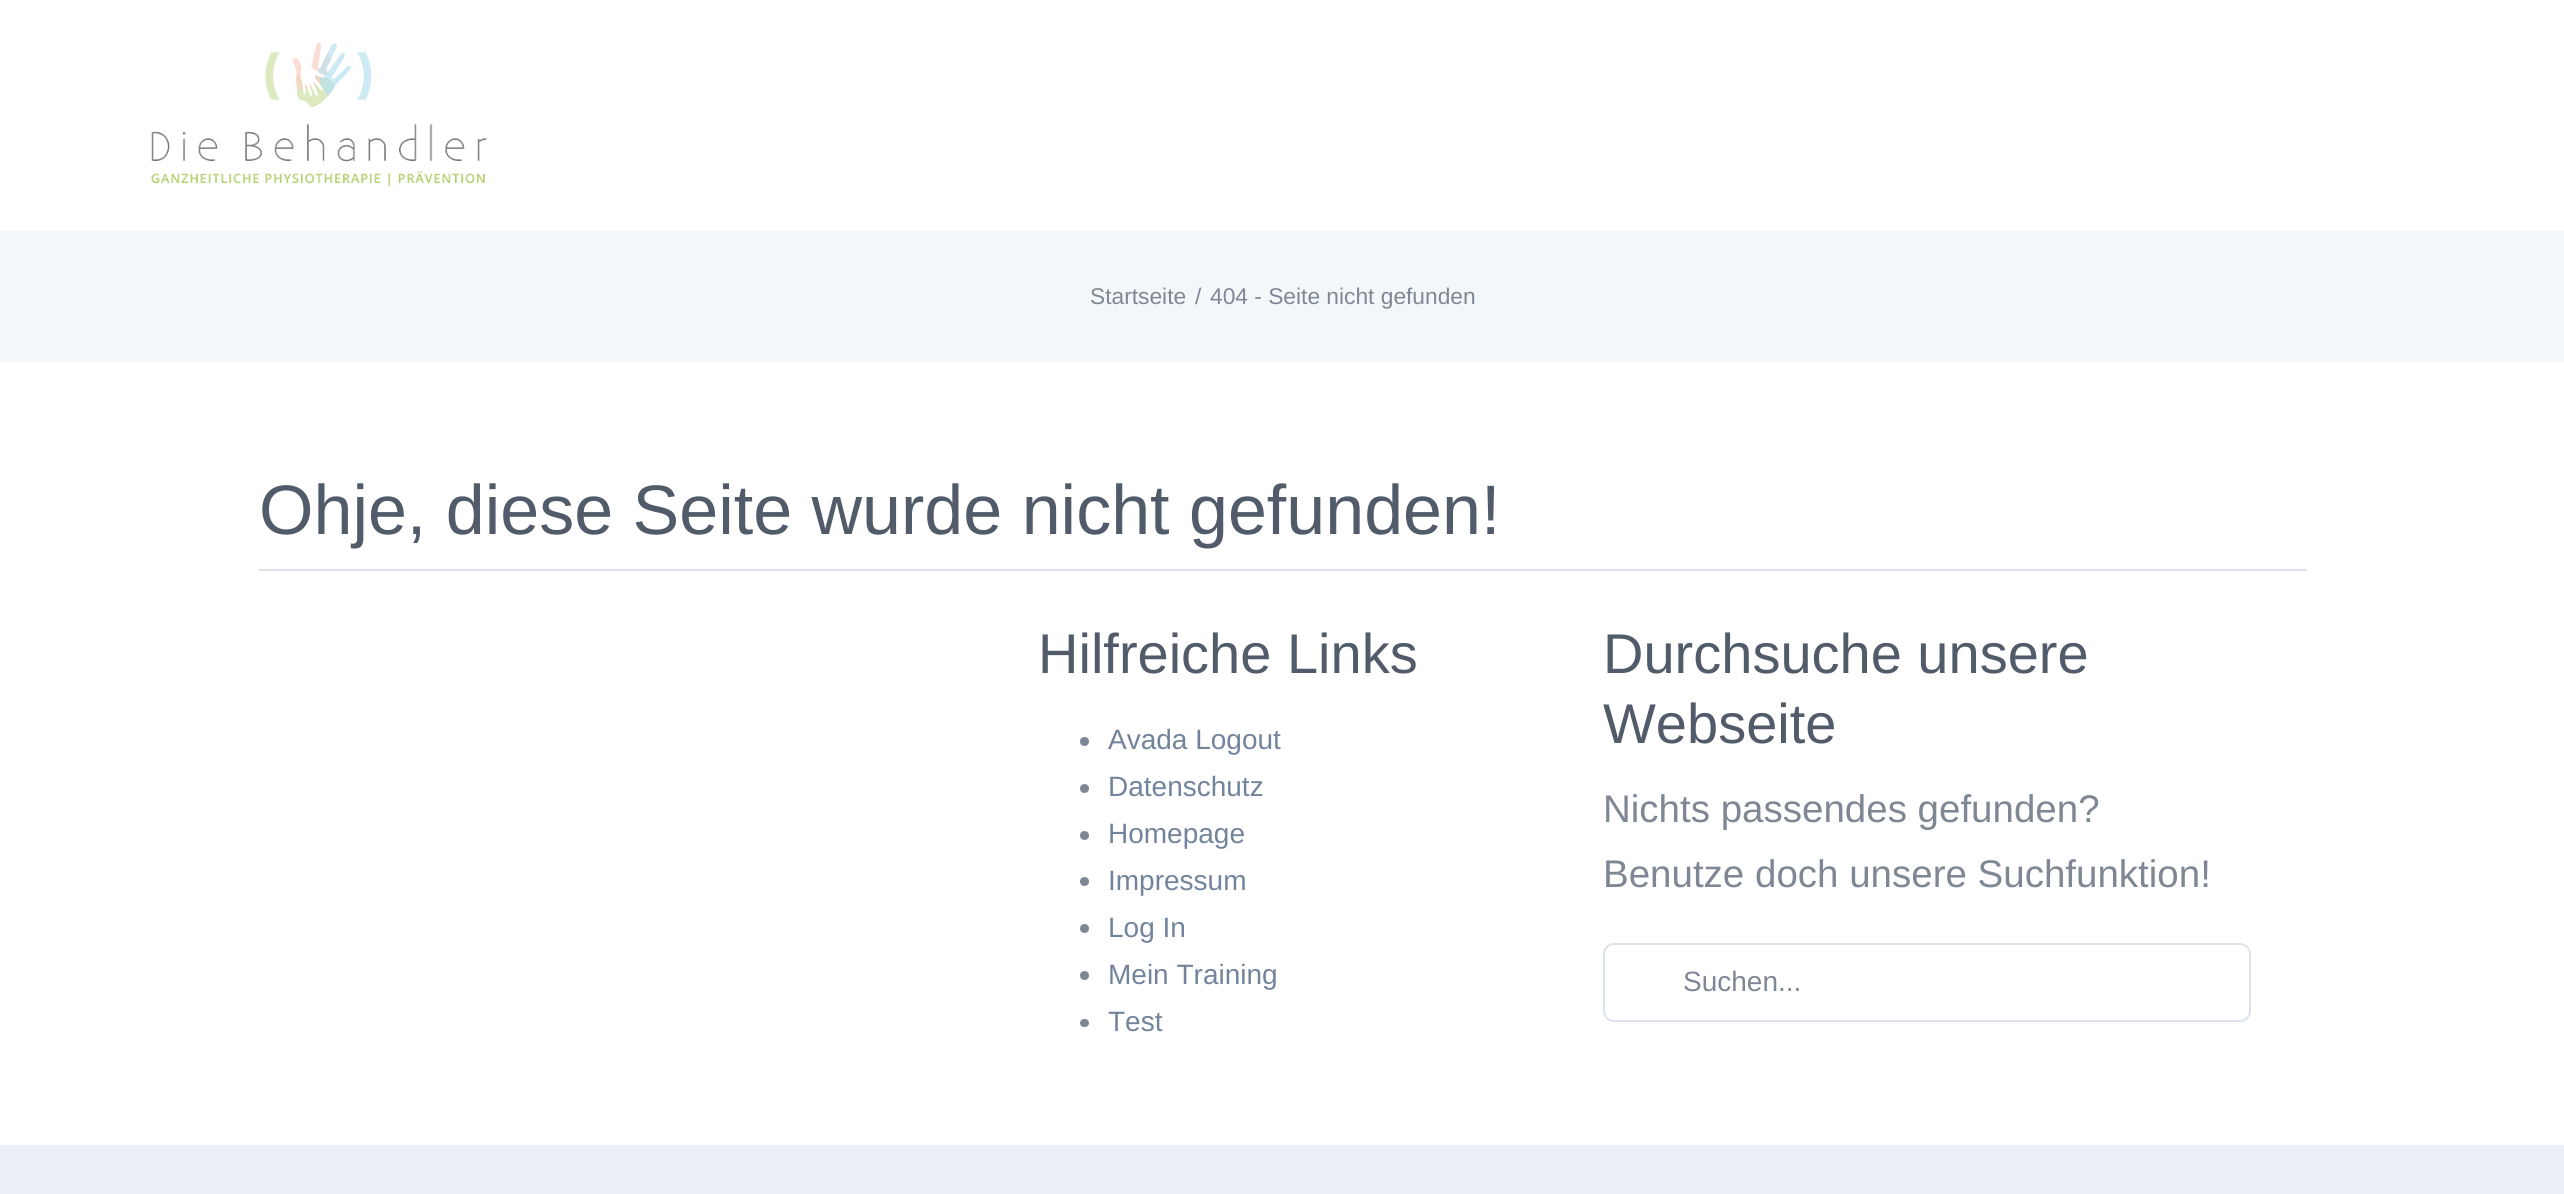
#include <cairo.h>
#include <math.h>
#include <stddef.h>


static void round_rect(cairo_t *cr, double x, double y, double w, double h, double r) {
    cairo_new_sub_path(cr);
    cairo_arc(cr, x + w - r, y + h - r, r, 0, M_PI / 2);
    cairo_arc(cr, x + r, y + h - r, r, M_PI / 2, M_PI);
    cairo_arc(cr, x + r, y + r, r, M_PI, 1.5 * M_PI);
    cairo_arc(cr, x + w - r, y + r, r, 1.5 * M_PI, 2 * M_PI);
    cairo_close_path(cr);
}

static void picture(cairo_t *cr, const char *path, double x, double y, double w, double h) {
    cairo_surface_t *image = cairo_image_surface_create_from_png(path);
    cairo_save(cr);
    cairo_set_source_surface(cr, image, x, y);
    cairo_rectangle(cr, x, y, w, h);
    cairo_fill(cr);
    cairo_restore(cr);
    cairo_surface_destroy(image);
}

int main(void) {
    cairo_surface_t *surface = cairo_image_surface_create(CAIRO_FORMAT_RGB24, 2564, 1194);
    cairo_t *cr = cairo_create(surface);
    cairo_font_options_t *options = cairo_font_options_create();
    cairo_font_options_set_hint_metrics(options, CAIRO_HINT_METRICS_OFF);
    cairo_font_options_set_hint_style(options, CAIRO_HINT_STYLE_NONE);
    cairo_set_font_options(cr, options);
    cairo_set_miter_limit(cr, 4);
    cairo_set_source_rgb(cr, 1, 1, 1);
    cairo_paint(cr);
    picture(cr, "img1.png", 151, 42, 336, 145);
    cairo_set_source_rgb(cr, 0.957, 0.965, 0.973);
    cairo_rectangle(cr, 0, 231, 2564, 131);
    cairo_fill(cr);
    cairo_select_font_face(cr, "Liberation Sans", CAIRO_FONT_SLANT_NORMAL, CAIRO_FONT_WEIGHT_NORMAL);
    cairo_set_font_size(cr, 22.75);
    cairo_set_source_rgb(cr, 0.498, 0.529, 0.584);
    cairo_move_to(cr, 1090, 304);
    cairo_show_text(cr, "Startseite");
    cairo_move_to(cr, 1195, 304);
    cairo_show_text(cr, "/");
    cairo_move_to(cr, 1210, 304);
    cairo_show_text(cr, "404 - Seite nicht gefunden");
    cairo_set_source_rgb(cr, 0.859, 0.886, 0.918);
    cairo_rectangle(cr, 259, 569, 2048, 2);
    cairo_fill(cr);
    cairo_set_font_size(cr, 70);
    cairo_set_source_rgb(cr, 0.318, 0.357, 0.412);
    cairo_move_to(cr, 259, 534);
    cairo_show_text(cr, "Ohje, diese Seite wurde nicht gefunden!");
    cairo_set_font_size(cr, 56);
    cairo_move_to(cr, 1038, 673);
    cairo_show_text(cr, "Hilfreiche Links");
    cairo_set_source_rgb(cr, 0.498, 0.529, 0.584);
    cairo_new_path(cr);
    cairo_arc(cr, 1084.5, 741.5, 4.5, 0, 2 * M_PI);
    cairo_fill(cr);
    cairo_set_font_size(cr, 28);
    cairo_set_source_rgb(cr, 0.447, 0.518, 0.612);
    cairo_move_to(cr, 1108, 749);
    cairo_show_text(cr, "Avada Logout");
    cairo_set_source_rgb(cr, 0.498, 0.529, 0.584);
    cairo_new_path(cr);
    cairo_arc(cr, 1084.5, 788.5, 4.5, 0, 2 * M_PI);
    cairo_fill(cr);
    cairo_set_source_rgb(cr, 0.447, 0.518, 0.612);
    cairo_move_to(cr, 1108, 796);
    cairo_show_text(cr, "Datenschutz");
    cairo_set_source_rgb(cr, 0.498, 0.529, 0.584);
    cairo_new_path(cr);
    cairo_arc(cr, 1084.5, 835.5, 4.5, 0, 2 * M_PI);
    cairo_fill(cr);
    cairo_set_source_rgb(cr, 0.447, 0.518, 0.612);
    cairo_move_to(cr, 1108, 843);
    cairo_show_text(cr, "Homepage");
    cairo_set_source_rgb(cr, 0.498, 0.529, 0.584);
    cairo_new_path(cr);
    cairo_arc(cr, 1084.5, 881.5, 4.5, 0, 2 * M_PI);
    cairo_fill(cr);
    cairo_set_source_rgb(cr, 0.447, 0.518, 0.612);
    cairo_move_to(cr, 1108, 890);
    cairo_show_text(cr, "Impressum");
    cairo_set_source_rgb(cr, 0.498, 0.529, 0.584);
    cairo_new_path(cr);
    cairo_arc(cr, 1084.5, 928.5, 4.5, 0, 2 * M_PI);
    cairo_fill(cr);
    cairo_set_source_rgb(cr, 0.447, 0.518, 0.612);
    cairo_move_to(cr, 1108, 937);
    cairo_show_text(cr, "Log In");
    cairo_set_source_rgb(cr, 0.498, 0.529, 0.584);
    cairo_new_path(cr);
    cairo_arc(cr, 1084.5, 975.5, 4.5, 0, 2 * M_PI);
    cairo_fill(cr);
    cairo_set_source_rgb(cr, 0.447, 0.518, 0.612);
    cairo_move_to(cr, 1108, 984);
    cairo_show_text(cr, "Mein Training");
    cairo_set_source_rgb(cr, 0.498, 0.529, 0.584);
    round_rect(cr, 1080, 1019, 9, 8, 4);
    cairo_fill(cr);
    cairo_set_source_rgb(cr, 0.447, 0.518, 0.612);
    cairo_move_to(cr, 1108, 1031);
    cairo_show_text(cr, "Test");
    cairo_set_font_size(cr, 56);
    cairo_set_source_rgb(cr, 0.318, 0.357, 0.412);
    cairo_move_to(cr, 1603, 673);
    cairo_show_text(cr, "Durchsuche unsere");
    cairo_move_to(cr, 1603, 743);
    cairo_show_text(cr, "Webseite");
    cairo_set_font_size(cr, 38.5);
    cairo_set_source_rgb(cr, 0.498, 0.529, 0.584);
    cairo_move_to(cr, 1603, 822);
    cairo_show_text(cr, "Nichts passendes gefunden?");
    cairo_move_to(cr, 1603, 887);
    cairo_show_text(cr, "Benutze doch unsere Suchfunktion!");
    round_rect(cr, 1604, 944, 646, 77, 10);
    cairo_set_source_rgb(cr, 0.859, 0.886, 0.918);
    cairo_stroke(cr);
    cairo_set_font_size(cr, 28);
    cairo_set_source_rgb(cr, 0.498, 0.529, 0.584);
    cairo_move_to(cr, 1683, 991);
    cairo_show_text(cr, "Suchen...");
    cairo_set_source_rgb(cr, 0.925, 0.941, 0.961);
    cairo_rectangle(cr, 0, 1145, 2564, 49);
    cairo_fill(cr);
    cairo_surface_write_to_png(surface, "page.png");
    cairo_font_options_destroy(options);
    cairo_destroy(cr);
    cairo_surface_destroy(surface);
    return 0;
}
